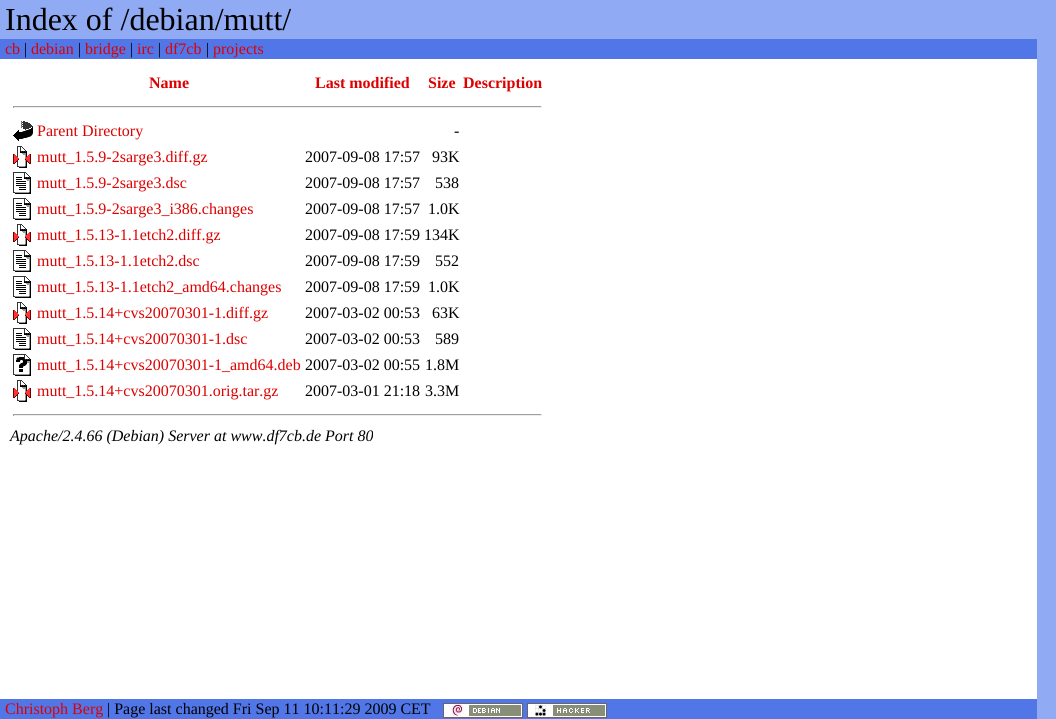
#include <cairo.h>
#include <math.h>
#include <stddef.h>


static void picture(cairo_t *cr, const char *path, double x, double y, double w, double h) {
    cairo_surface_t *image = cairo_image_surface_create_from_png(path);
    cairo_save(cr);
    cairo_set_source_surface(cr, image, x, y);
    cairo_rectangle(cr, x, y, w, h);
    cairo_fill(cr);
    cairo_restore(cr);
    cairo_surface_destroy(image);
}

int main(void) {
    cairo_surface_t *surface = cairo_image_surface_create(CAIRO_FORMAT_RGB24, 1056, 719);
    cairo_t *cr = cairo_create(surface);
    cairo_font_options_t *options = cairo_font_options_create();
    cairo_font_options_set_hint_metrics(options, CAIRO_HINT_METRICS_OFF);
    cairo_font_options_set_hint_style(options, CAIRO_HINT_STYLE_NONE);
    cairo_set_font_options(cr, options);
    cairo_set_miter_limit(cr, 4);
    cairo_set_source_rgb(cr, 1, 1, 1);
    cairo_paint(cr);
    cairo_set_source_rgb(cr, 0.565, 0.671, 0.957);
    cairo_rectangle(cr, 0, 0, 1056, 39);
    cairo_fill(cr);
    cairo_select_font_face(cr, "Liberation Serif", CAIRO_FONT_SLANT_NORMAL, CAIRO_FONT_WEIGHT_NORMAL);
    cairo_set_font_size(cr, 32);
    cairo_set_source_rgb(cr, 0, 0, 0);
    cairo_move_to(cr, 5, 30);
    cairo_show_text(cr, "Index of /debian/mutt/");
    cairo_set_source_rgb(cr, 0.318, 0.463, 0.91);
    cairo_rectangle(cr, 0, 39, 1037, 20);
    cairo_fill(cr);
    cairo_set_font_size(cr, 16);
    cairo_set_source_rgb(cr, 0.867, 0, 0);
    cairo_move_to(cr, 5, 54);
    cairo_show_text(cr, "cb");
    cairo_set_source_rgb(cr, 0, 0, 0);
    cairo_move_to(cr, 24, 54);
    cairo_show_text(cr, "|");
    cairo_set_source_rgb(cr, 0.867, 0, 0);
    cairo_move_to(cr, 31, 54);
    cairo_show_text(cr, "debian");
    cairo_set_source_rgb(cr, 0, 0, 0);
    cairo_move_to(cr, 78, 54);
    cairo_show_text(cr, "|");
    cairo_set_source_rgb(cr, 0.867, 0, 0);
    cairo_move_to(cr, 85, 54);
    cairo_show_text(cr, "bridge");
    cairo_set_source_rgb(cr, 0, 0, 0);
    cairo_move_to(cr, 130, 54);
    cairo_show_text(cr, "|");
    cairo_set_source_rgb(cr, 0.867, 0, 0);
    cairo_move_to(cr, 137, 54);
    cairo_show_text(cr, "irc");
    cairo_set_source_rgb(cr, 0, 0, 0);
    cairo_move_to(cr, 158, 54);
    cairo_show_text(cr, "|");
    cairo_set_source_rgb(cr, 0.867, 0, 0);
    cairo_move_to(cr, 165, 54);
    cairo_show_text(cr, "df7cb");
    cairo_set_source_rgb(cr, 0, 0, 0);
    cairo_move_to(cr, 206, 54);
    cairo_show_text(cr, "|");
    cairo_set_source_rgb(cr, 0.867, 0, 0);
    cairo_move_to(cr, 213, 54);
    cairo_show_text(cr, "projects");
    cairo_set_source_rgb(cr, 0.565, 0.671, 0.957);
    cairo_rectangle(cr, 1037, 39, 19, 680);
    cairo_fill(cr);
    cairo_select_font_face(cr, "Liberation Serif", CAIRO_FONT_SLANT_NORMAL, CAIRO_FONT_WEIGHT_BOLD);
    cairo_set_source_rgb(cr, 0.867, 0, 0);
    cairo_move_to(cr, 149, 88);
    cairo_show_text(cr, "Name");
    cairo_move_to(cr, 315, 88);
    cairo_show_text(cr, "Last modified");
    cairo_move_to(cr, 428, 88);
    cairo_show_text(cr, "Size");
    cairo_move_to(cr, 463, 88);
    cairo_show_text(cr, "Description");
    cairo_set_source_rgb(cr, 0.624, 0.624, 0.624);
    cairo_rectangle(cr, 13, 106, 529, 1);
    cairo_fill(cr);
    cairo_set_source_rgb(cr, 0.933, 0.933, 0.933);
    cairo_rectangle(cr, 541, 106, 1, 2);
    cairo_fill(cr);
    cairo_rectangle(cr, 13, 107, 529, 1);
    cairo_fill(cr);
    cairo_set_source_rgb(cr, 0.624, 0.624, 0.624);
    cairo_rectangle(cr, 13, 106, 1, 2);
    cairo_fill(cr);
    picture(cr, "img1.png", 13, 121, 20, 20);
    cairo_select_font_face(cr, "Liberation Serif", CAIRO_FONT_SLANT_NORMAL, CAIRO_FONT_WEIGHT_NORMAL);
    cairo_set_source_rgb(cr, 0.867, 0, 0);
    cairo_move_to(cr, 37, 136);
    cairo_show_text(cr, "Parent Directory");
    cairo_set_source_rgb(cr, 0, 0, 0);
    cairo_move_to(cr, 454, 136);
    cairo_show_text(cr, "-");
    picture(cr, "img2.png", 13, 146, 18, 22);
    cairo_set_source_rgb(cr, 0.867, 0, 0);
    cairo_move_to(cr, 37, 162);
    cairo_show_text(cr, "mutt_1.5.9-2sarge3.diff.gz");
    cairo_set_source_rgb(cr, 0, 0, 0);
    cairo_move_to(cr, 305, 162);
    cairo_show_text(cr, "2007-09-08 17:57");
    cairo_move_to(cr, 432, 162);
    cairo_show_text(cr, "93K");
    picture(cr, "img3.png", 13, 172, 18, 22);
    cairo_set_source_rgb(cr, 0.867, 0, 0);
    cairo_move_to(cr, 37, 188);
    cairo_show_text(cr, "mutt_1.5.9-2sarge3.dsc");
    cairo_set_source_rgb(cr, 0, 0, 0);
    cairo_move_to(cr, 305, 188);
    cairo_show_text(cr, "2007-09-08 17:57");
    cairo_move_to(cr, 435, 188);
    cairo_show_text(cr, "538");
    picture(cr, "img3.png", 13, 198, 18, 22);
    cairo_set_source_rgb(cr, 0.867, 0, 0);
    cairo_move_to(cr, 37, 214);
    cairo_show_text(cr, "mutt_1.5.9-2sarge3_i386.changes");
    cairo_set_source_rgb(cr, 0, 0, 0);
    cairo_move_to(cr, 305, 214);
    cairo_show_text(cr, "2007-09-08 17:57");
    cairo_move_to(cr, 428, 214);
    cairo_show_text(cr, "1.0K");
    picture(cr, "img2.png", 13, 224, 18, 22);
    cairo_set_source_rgb(cr, 0.867, 0, 0);
    cairo_move_to(cr, 37, 240);
    cairo_show_text(cr, "mutt_1.5.13-1.1etch2.diff.gz");
    cairo_set_source_rgb(cr, 0, 0, 0);
    cairo_move_to(cr, 305, 240);
    cairo_show_text(cr, "2007-09-08 17:59 134K");
    picture(cr, "img3.png", 13, 250, 18, 22);
    cairo_set_source_rgb(cr, 0.867, 0, 0);
    cairo_move_to(cr, 37, 266);
    cairo_show_text(cr, "mutt_1.5.13-1.1etch2.dsc");
    cairo_set_source_rgb(cr, 0, 0, 0);
    cairo_move_to(cr, 305, 266);
    cairo_show_text(cr, "2007-09-08 17:59");
    cairo_move_to(cr, 435, 266);
    cairo_show_text(cr, "552");
    picture(cr, "img3.png", 13, 276, 18, 22);
    cairo_set_source_rgb(cr, 0.867, 0, 0);
    cairo_move_to(cr, 37, 292);
    cairo_show_text(cr, "mutt_1.5.13-1.1etch2_amd64.changes");
    cairo_set_source_rgb(cr, 0, 0, 0);
    cairo_move_to(cr, 305, 292);
    cairo_show_text(cr, "2007-09-08 17:59");
    cairo_move_to(cr, 428, 292);
    cairo_show_text(cr, "1.0K");
    picture(cr, "img2.png", 13, 302, 18, 22);
    cairo_set_source_rgb(cr, 0.867, 0, 0);
    cairo_move_to(cr, 37, 318);
    cairo_show_text(cr, "mutt_1.5.14+cvs20070301-1.diff.gz");
    cairo_set_source_rgb(cr, 0, 0, 0);
    cairo_move_to(cr, 305, 318);
    cairo_show_text(cr, "2007-03-02 00:53");
    cairo_move_to(cr, 432, 318);
    cairo_show_text(cr, "63K");
    picture(cr, "img3.png", 13, 328, 18, 22);
    cairo_set_source_rgb(cr, 0.867, 0, 0);
    cairo_move_to(cr, 37, 344);
    cairo_show_text(cr, "mutt_1.5.14+cvs20070301-1.dsc");
    cairo_set_source_rgb(cr, 0, 0, 0);
    cairo_move_to(cr, 305, 344);
    cairo_show_text(cr, "2007-03-02 00:53");
    cairo_move_to(cr, 435, 344);
    cairo_show_text(cr, "589");
    picture(cr, "img4.png", 13, 354, 18, 22);
    cairo_set_source_rgb(cr, 0.867, 0, 0);
    cairo_move_to(cr, 37, 370);
    cairo_show_text(cr, "mutt_1.5.14+cvs20070301-1_amd64.deb");
    cairo_set_source_rgb(cr, 0, 0, 0);
    cairo_move_to(cr, 305, 370);
    cairo_show_text(cr, "2007-03-02 00:55");
    cairo_move_to(cr, 425, 370);
    cairo_show_text(cr, "1.8M");
    picture(cr, "img2.png", 13, 380, 18, 22);
    cairo_set_source_rgb(cr, 0.867, 0, 0);
    cairo_move_to(cr, 37, 396);
    cairo_show_text(cr, "mutt_1.5.14+cvs20070301.orig.tar.gz");
    cairo_set_source_rgb(cr, 0, 0, 0);
    cairo_move_to(cr, 305, 396);
    cairo_show_text(cr, "2007-03-01 21:18");
    cairo_move_to(cr, 425, 396);
    cairo_show_text(cr, "3.3M");
    cairo_set_source_rgb(cr, 0.624, 0.624, 0.624);
    cairo_rectangle(cr, 13, 414, 529, 1);
    cairo_fill(cr);
    cairo_set_source_rgb(cr, 0.933, 0.933, 0.933);
    cairo_rectangle(cr, 541, 414, 1, 2);
    cairo_fill(cr);
    cairo_rectangle(cr, 13, 415, 529, 1);
    cairo_fill(cr);
    cairo_set_source_rgb(cr, 0.624, 0.624, 0.624);
    cairo_rectangle(cr, 13, 414, 1, 2);
    cairo_fill(cr);
    cairo_select_font_face(cr, "Liberation Serif", CAIRO_FONT_SLANT_ITALIC, CAIRO_FONT_WEIGHT_NORMAL);
    cairo_set_source_rgb(cr, 0, 0, 0);
    cairo_move_to(cr, 10, 441);
    cairo_show_text(cr, "Apache/2.4.66 (Debian) Server at www.df7cb.de Port 80");
    cairo_set_source_rgb(cr, 0.318, 0.463, 0.91);
    cairo_rectangle(cr, 0, 699, 1037, 20);
    cairo_fill(cr);
    cairo_select_font_face(cr, "Liberation Serif", CAIRO_FONT_SLANT_NORMAL, CAIRO_FONT_WEIGHT_NORMAL);
    cairo_set_source_rgb(cr, 0.867, 0, 0);
    cairo_move_to(cr, 5, 714);
    cairo_show_text(cr, "Christoph Berg");
    cairo_set_source_rgb(cr, 0, 0, 0);
    cairo_move_to(cr, 107, 714);
    cairo_show_text(cr, "| Page last changed Fri Sep 11 10:11:29 2009 CET");
    picture(cr, "img5.png", 443, 703, 80, 15);
    picture(cr, "img6.png", 527, 703, 80, 15);
    cairo_surface_write_to_png(surface, "page.png");
    cairo_font_options_destroy(options);
    cairo_destroy(cr);
    cairo_surface_destroy(surface);
    return 0;
}
